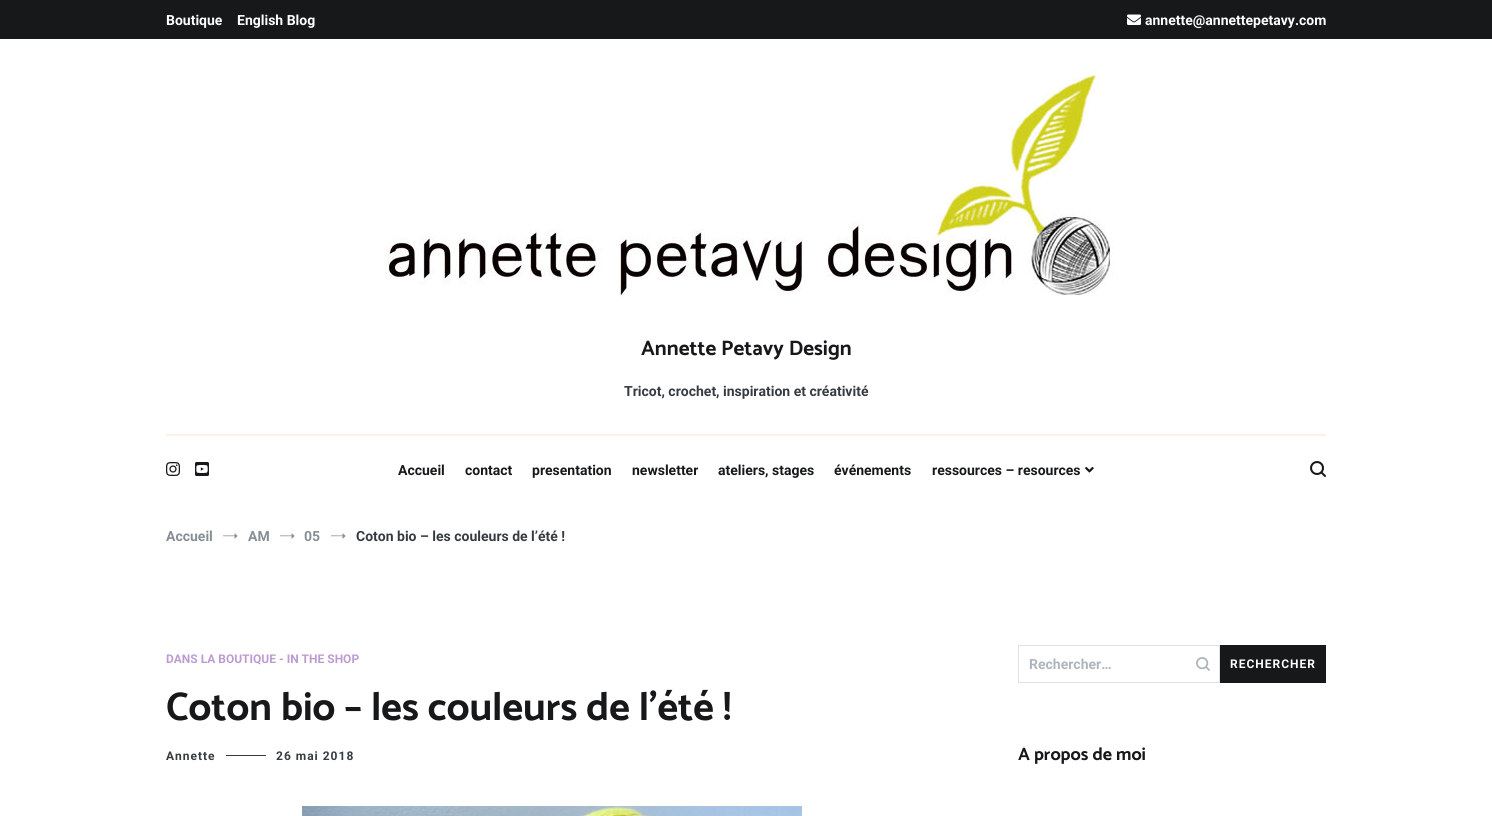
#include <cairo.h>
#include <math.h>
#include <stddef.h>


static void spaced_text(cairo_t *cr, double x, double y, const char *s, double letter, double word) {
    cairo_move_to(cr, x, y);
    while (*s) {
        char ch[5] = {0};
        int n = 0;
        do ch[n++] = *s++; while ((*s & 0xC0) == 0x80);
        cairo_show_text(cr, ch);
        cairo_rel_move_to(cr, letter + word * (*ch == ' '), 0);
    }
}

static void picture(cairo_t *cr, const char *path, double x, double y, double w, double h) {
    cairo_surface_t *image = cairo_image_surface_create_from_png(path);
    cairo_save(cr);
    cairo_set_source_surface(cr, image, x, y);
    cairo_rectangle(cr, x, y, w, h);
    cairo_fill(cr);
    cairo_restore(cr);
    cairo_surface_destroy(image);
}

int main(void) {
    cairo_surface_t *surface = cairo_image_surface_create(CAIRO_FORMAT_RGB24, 1492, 816);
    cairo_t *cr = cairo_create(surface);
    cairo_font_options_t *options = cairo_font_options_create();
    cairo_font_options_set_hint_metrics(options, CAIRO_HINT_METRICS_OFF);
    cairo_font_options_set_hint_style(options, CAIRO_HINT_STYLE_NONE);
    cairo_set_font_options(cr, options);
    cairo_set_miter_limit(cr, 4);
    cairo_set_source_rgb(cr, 1, 1, 1);
    cairo_paint(cr);
    cairo_set_source_rgb(cr, 0.086, 0.094, 0.102);
    cairo_rectangle(cr, 0, 0, 1492, 39);
    cairo_fill(cr);
    cairo_select_font_face(cr, "Roboto", CAIRO_FONT_SLANT_NORMAL, CAIRO_FONT_WEIGHT_BOLD);
    cairo_set_font_size(cr, 14);
    cairo_set_source_rgb(cr, 1, 1, 1);
    cairo_move_to(cr, 166, 25);
    cairo_show_text(cr, "Boutique");
    cairo_move_to(cr, 237, 25);
    cairo_show_text(cr, "English Blog");
    picture(cr, "img1.png", 1127, 14, 14, 11);
    cairo_move_to(cr, 1145, 25);
    cairo_show_text(cr, "annette@annettepetavy.com");
    picture(cr, "img2.png", 386, 69, 728, 228);
    cairo_select_font_face(cr, "Catamaran", CAIRO_FONT_SLANT_NORMAL, CAIRO_FONT_WEIGHT_BOLD);
    cairo_set_font_size(cr, 21);
    cairo_set_source_rgb(cr, 0.086, 0.094, 0.102);
    cairo_move_to(cr, 641, 355);
    cairo_show_text(cr, "Annette Petavy Design");
    cairo_select_font_face(cr, "Roboto", CAIRO_FONT_SLANT_NORMAL, CAIRO_FONT_WEIGHT_BOLD);
    cairo_set_font_size(cr, 14);
    cairo_set_source_rgb(cr, 0.212, 0.231, 0.251);
    cairo_move_to(cr, 624, 396);
    cairo_show_text(cr, "Tricot, crochet, inspiration et créativité");
    cairo_set_source_rgb(cr, 1, 0.941, 0.902);
    cairo_rectangle(cr, 166, 434, 1160, 2);
    cairo_fill(cr);
    picture(cr, "img3.png", 166, 462, 14, 14);
    picture(cr, "img4.png", 195, 462, 14, 14);
    cairo_set_source_rgb(cr, 0.086, 0.094, 0.102);
    cairo_move_to(cr, 398, 475);
    cairo_show_text(cr, "Accueil");
    cairo_move_to(cr, 465, 475);
    cairo_show_text(cr, "contact");
    cairo_move_to(cr, 532, 475);
    cairo_show_text(cr, "presentation");
    cairo_move_to(cr, 632, 475);
    cairo_show_text(cr, "newsletter");
    cairo_move_to(cr, 718, 475);
    cairo_show_text(cr, "ateliers, stages");
    cairo_move_to(cr, 834, 475);
    cairo_show_text(cr, "événements");
    cairo_move_to(cr, 932, 475);
    cairo_show_text(cr, "ressources – resources");
    picture(cr, "img5.png", 1085, 467, 9, 6);
    picture(cr, "img6.png", 1310, 461, 16, 16);
    cairo_set_source_rgb(cr, 0.525, 0.557, 0.588);
    cairo_move_to(cr, 166, 541);
    cairo_show_text(cr, "Accueil");
    picture(cr, "img7.png", 223, 533, 15, 6);
    cairo_move_to(cr, 248, 541);
    cairo_show_text(cr, "AM");
    picture(cr, "img7.png", 280, 533, 15, 6);
    cairo_move_to(cr, 304, 541);
    cairo_show_text(cr, "05");
    picture(cr, "img7.png", 331, 533, 15, 6);
    cairo_set_source_rgb(cr, 0.212, 0.231, 0.251);
    cairo_move_to(cr, 356, 541);
    cairo_show_text(cr, "Coton bio – les couleurs de l’été !");
    cairo_set_font_size(cr, 12);
    cairo_set_source_rgb(cr, 0.741, 0.608, 0.816);
    cairo_move_to(cr, 166, 663);
    cairo_show_text(cr, "DANS LA BOUTIQUE - IN THE SHOP");
    cairo_select_font_face(cr, "Catamaran", CAIRO_FONT_SLANT_NORMAL, CAIRO_FONT_WEIGHT_BOLD);
    cairo_set_font_size(cr, 40);
    cairo_set_source_rgb(cr, 0.086, 0.094, 0.102);
    cairo_move_to(cr, 166, 720);
    cairo_show_text(cr, "Coton bio – les couleurs de l’été !");
    cairo_select_font_face(cr, "Roboto", CAIRO_FONT_SLANT_NORMAL, CAIRO_FONT_WEIGHT_BOLD);
    cairo_set_font_size(cr, 12);
    cairo_set_source_rgb(cr, 0.212, 0.231, 0.251);
    spaced_text(cr, 166, 760, "Annette", 1, 0);
    cairo_rectangle(cr, 226, 755, 40, 1);
    cairo_fill(cr);
    spaced_text(cr, 276, 760, "26 mai 2018", 1, 0);
    picture(cr, "img8.png", 302, 806, 500, 10);
    cairo_rectangle(cr, 1018.5, 645.5, 201, 37);
    cairo_set_source_rgb(cr, 0.871, 0.886, 0.902);
    cairo_set_line_width(cr, 1);
    cairo_stroke(cr);
    cairo_set_font_size(cr, 14);
    cairo_set_source_rgb(cr, 0.678, 0.71, 0.741);
    cairo_move_to(cr, 1029, 669);
    cairo_show_text(cr, "Rechercher…");
    picture(cr, "img9.png", 1196, 657, 14, 14);
    cairo_set_source_rgb(cr, 0.086, 0.094, 0.102);
    cairo_rectangle(cr, 1220, 645, 106, 38);
    cairo_fill(cr);
    cairo_set_font_size(cr, 12);
    cairo_set_source_rgb(cr, 1, 1, 1);
    spaced_text(cr, 1230, 668, "RECHERCHER", 1, 0);
    cairo_select_font_face(cr, "Catamaran", CAIRO_FONT_SLANT_NORMAL, CAIRO_FONT_WEIGHT_BOLD);
    cairo_set_font_size(cr, 18);
    cairo_set_source_rgb(cr, 0.086, 0.094, 0.102);
    cairo_move_to(cr, 1018, 760);
    cairo_show_text(cr, "A propos de moi");
    cairo_surface_write_to_png(surface, "page.png");
    cairo_font_options_destroy(options);
    cairo_destroy(cr);
    cairo_surface_destroy(surface);
    return 0;
}
